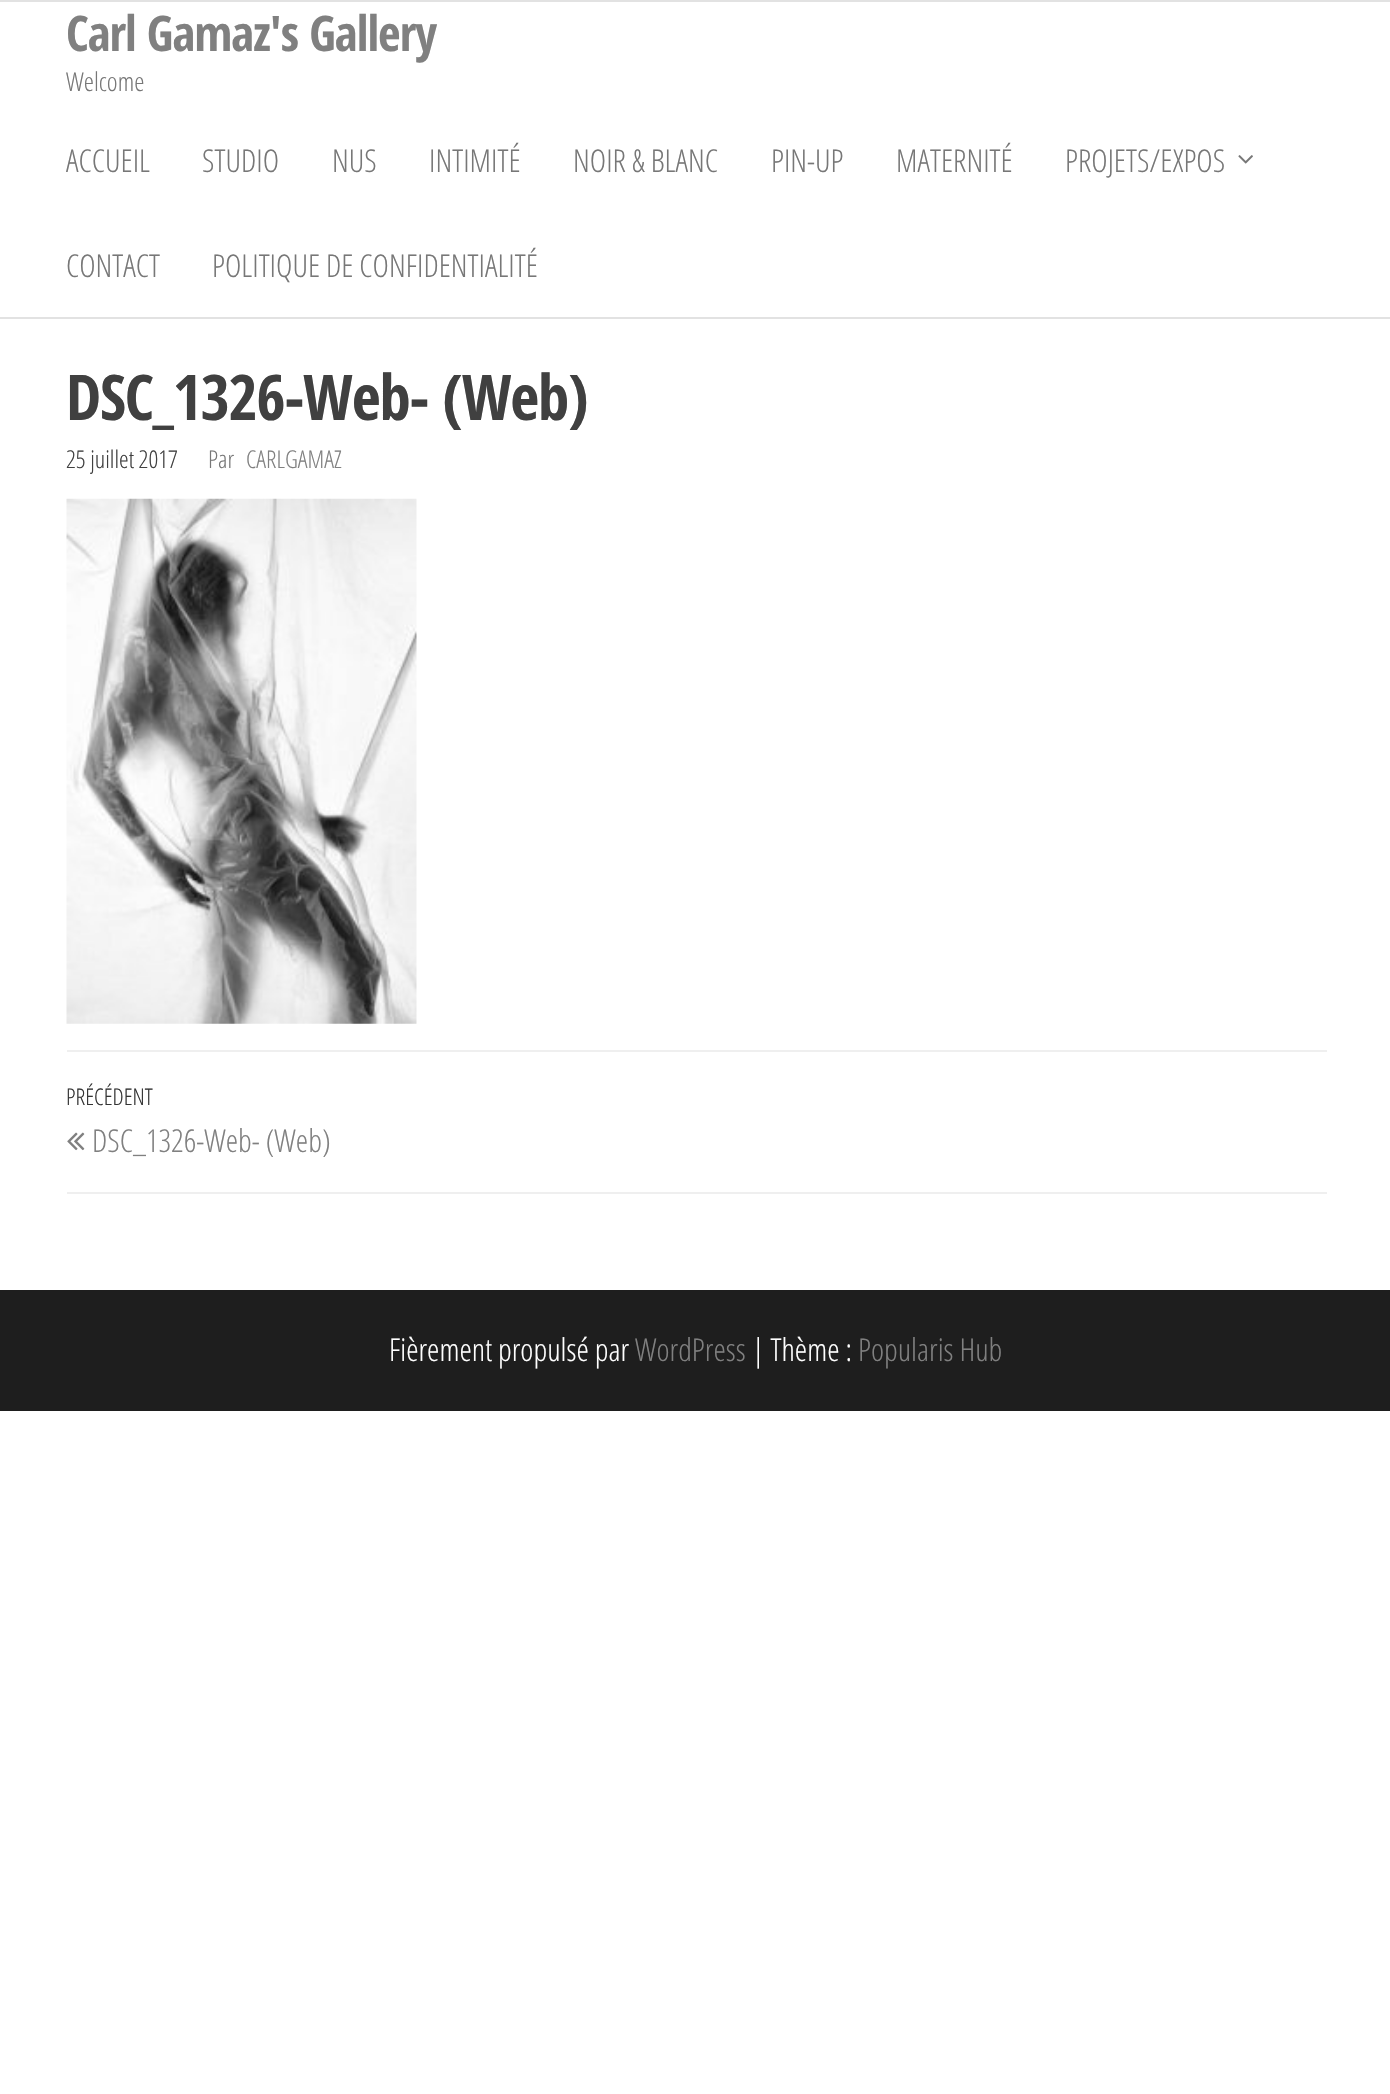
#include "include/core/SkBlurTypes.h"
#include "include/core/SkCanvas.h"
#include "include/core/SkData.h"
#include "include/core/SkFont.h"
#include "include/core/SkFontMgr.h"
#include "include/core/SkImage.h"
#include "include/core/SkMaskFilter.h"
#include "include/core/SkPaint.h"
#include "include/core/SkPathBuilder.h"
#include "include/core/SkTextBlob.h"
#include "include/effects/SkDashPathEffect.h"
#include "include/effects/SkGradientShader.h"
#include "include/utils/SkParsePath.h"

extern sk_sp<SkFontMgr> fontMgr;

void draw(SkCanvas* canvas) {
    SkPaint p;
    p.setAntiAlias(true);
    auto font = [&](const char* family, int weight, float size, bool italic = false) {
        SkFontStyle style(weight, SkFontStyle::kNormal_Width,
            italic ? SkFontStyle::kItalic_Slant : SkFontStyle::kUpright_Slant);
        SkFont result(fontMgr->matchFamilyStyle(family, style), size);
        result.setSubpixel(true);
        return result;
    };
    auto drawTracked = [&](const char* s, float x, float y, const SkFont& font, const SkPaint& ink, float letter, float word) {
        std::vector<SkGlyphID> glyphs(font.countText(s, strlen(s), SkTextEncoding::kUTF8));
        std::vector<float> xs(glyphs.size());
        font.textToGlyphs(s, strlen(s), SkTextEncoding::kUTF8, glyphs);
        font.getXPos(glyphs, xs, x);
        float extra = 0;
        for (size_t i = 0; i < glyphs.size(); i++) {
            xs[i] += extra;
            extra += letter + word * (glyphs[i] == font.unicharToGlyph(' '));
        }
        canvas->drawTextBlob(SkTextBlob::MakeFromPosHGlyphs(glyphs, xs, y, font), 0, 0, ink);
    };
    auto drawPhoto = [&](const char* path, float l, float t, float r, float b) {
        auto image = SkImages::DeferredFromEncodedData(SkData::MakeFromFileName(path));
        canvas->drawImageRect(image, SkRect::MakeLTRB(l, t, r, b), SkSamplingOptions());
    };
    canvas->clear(0xFFFFFFFF);
    p.setColor(0xFFE2E2E2);
    canvas->drawRect(SkRect::MakeLTRB(0, 0, 1390, 2), p);
    canvas->drawRect(SkRect::MakeLTRB(0, 317, 1390, 319), p);
    auto font1 = font("Open Sans Condensed", 700, 49);
    p.setColor(0xFF808080);
    drawTracked("Carl Gamaz's Gallery", 66, 51, font1, p, -1, 0);
    auto font2 = font("Open Sans Condensed", 300, 26);
    p.setColor(0xFF777777);
    canvas->drawString("Welcome", 66, 91, font2, p);
    auto font3 = font("Open Sans Condensed", 300, 31.5f);
    {
        const struct { const char* s; float x, y; } items[] = {
            {"ACCUEIL", 66, 172},
            {"STUDIO", 202, 172},
            {"NUS", 332, 172},
            {"INTIMITÉ", 429, 172},
            {"NOIR & BLANC", 573, 172},
            {"PIN-UP", 771, 172},
            {"MATERNITÉ", 896, 172},
            {"PROJETS/EXPOS", 1065, 172},
        };
        for (auto [s, x, y] : items) {
            canvas->drawString(s, x, y, font3, p);
        }
    }
    drawPhoto("media/1.png", 1238, 155, 1253, 164);
    canvas->drawString("CONTACT", 66, 277, font3, p);
    canvas->drawString("POLITIQUE DE CONFIDENTIALITÉ", 212, 277, font3, p);
    auto font4 = font("Open Sans Condensed", 700, 63);
    p.setColor(0xFF404040);
    drawTracked("DSC_1326-Web- (Web)", 66, 420, font4, p, -1.25f, 0);
    auto font5 = font("Open Sans Condensed", 300, 24.5f);
    canvas->drawString("25 juillet 2017", 66, 468, font5, p);
    p.setColor(0xFF777777);
    canvas->drawString("Par", 208, 468, font5, p);
    p.setColor(0xFF808080);
    canvas->drawString("CARLGAMAZ", 246, 468, font5, p);
    drawPhoto("media/2.png", 66, 498, 417, 1024);
    p.setColor(0xFFEFEFEF);
    canvas->drawRect(SkRect::MakeLTRB(67, 1050, 1327, 1052), p);
    canvas->drawRect(SkRect::MakeLTRB(67, 1192, 1327, 1194), p);
    auto font6 = font("Open Sans Condensed", 300, 23);
    p.setColor(0xFF333333);
    canvas->drawString("PRÉCÉDENT", 66, 1105, font6, p);
    drawPhoto("media/3.png", 67, 1132, 85, 1151);
    p.setColor(0xFF808080);
    canvas->drawString("DSC_1326-Web- (Web)", 92, 1152, font3, p);
    p.setColor(0xFF1E1E1E);
    canvas->drawRect(SkRect::MakeLTRB(0, 1290, 1390, 1411), p);
    p.setColor(0xFFFFFFFF);
    canvas->drawString("Fièrement propulsé par", 389, 1361, font3, p);
    p.setColor(0xFF808080);
    canvas->drawString("WordPress", 635, 1361, font3, p);
    p.setColor(0xFFFFFFFF);
    canvas->drawString("| Thème :", 752, 1361, font3, p);
    p.setColor(0xFF808080);
    canvas->drawString("Popularis Hub", 858, 1361, font3, p);
}
